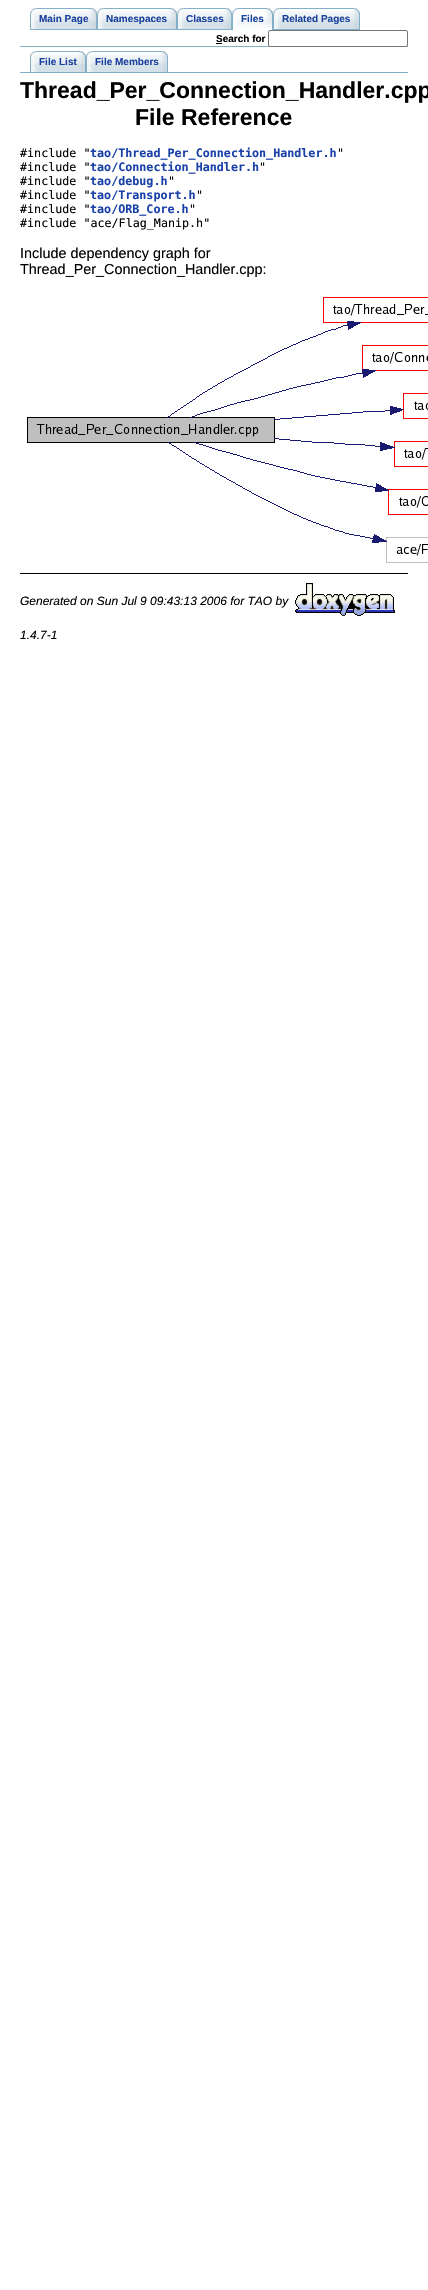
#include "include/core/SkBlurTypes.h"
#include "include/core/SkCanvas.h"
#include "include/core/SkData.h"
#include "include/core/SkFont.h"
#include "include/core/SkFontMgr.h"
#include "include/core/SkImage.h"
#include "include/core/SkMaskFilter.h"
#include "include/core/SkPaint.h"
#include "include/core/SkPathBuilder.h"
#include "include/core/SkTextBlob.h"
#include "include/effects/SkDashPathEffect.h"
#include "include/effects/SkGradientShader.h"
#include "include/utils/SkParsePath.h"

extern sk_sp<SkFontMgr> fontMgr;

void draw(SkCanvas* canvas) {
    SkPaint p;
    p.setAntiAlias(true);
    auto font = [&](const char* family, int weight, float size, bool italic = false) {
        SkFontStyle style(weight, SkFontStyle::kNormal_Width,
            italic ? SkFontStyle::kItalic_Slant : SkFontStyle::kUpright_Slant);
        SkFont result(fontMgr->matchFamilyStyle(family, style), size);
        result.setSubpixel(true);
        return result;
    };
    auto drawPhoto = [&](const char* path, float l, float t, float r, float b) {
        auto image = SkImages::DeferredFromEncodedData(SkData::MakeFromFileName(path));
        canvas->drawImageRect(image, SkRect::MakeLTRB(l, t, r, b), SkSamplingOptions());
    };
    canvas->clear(0xFFFFFFFF);
    p.setColor(0xFF84B0C7);
    canvas->drawRect(SkRect::MakeLTRB(20, 46, 408, 47), p);
    drawPhoto("media/1.png", 39, 8, 97, 29);
    canvas->drawRect(SkRect::MakeLTRB(30, 29, 232, 30), p);
    drawPhoto("media/2.png", 30, 8, 39, 29);
    auto font1 = font("Liberation Sans", 700, 10);
    p.setColor(0xFF1A419D);
    canvas->drawString("Main Page", 39, 22, font1, p);
    drawPhoto("media/3.png", 106, 8, 177, 29);
    drawPhoto("media/2.png", 97, 8, 106, 29);
    canvas->drawString("Namespaces", 106, 22, font1, p);
    drawPhoto("media/4.png", 186, 8, 232, 29);
    drawPhoto("media/2.png", 177, 8, 186, 29);
    canvas->drawString("Classes", 186, 22, font1, p);
    drawPhoto("media/5.png", 239, 8, 273, 30);
    drawPhoto("media/6.png", 232, 8, 239, 30);
    canvas->drawString("Files", 241, 22, font1, p);
    drawPhoto("media/7.png", 282, 8, 360, 29);
    p.setColor(0xFF84B0C7);
    canvas->drawRect(SkRect::MakeLTRB(273, 29, 360, 30), p);
    drawPhoto("media/2.png", 273, 8, 282, 29);
    p.setColor(0xFF1A419D);
    canvas->drawString("Related Pages", 282, 22, font1, p);
    p.setColor(0xFF000000);
    canvas->drawString("Search for", 216, 42, font1, p);
    canvas->drawRect(SkRect::MakeLTRB(216, 43, 222, 44), p);
    p.setColor(0xFFFFFFFF);
    canvas->drawRoundRect(SkRect::MakeLTRB(268.5f, 30.5f, 407.5f, 46.5f), 1.5f, 1.5f, p);
    p.setStyle(SkPaint::kStroke_Style);
    p.setStrokeWidth(1);
    p.setColor(0xFF767676);
    canvas->drawRoundRect(SkRect::MakeLTRB(268.5f, 30.5f, 407.5f, 46.5f), 1.5f, 1.5f, p);
    p.setStyle(SkPaint::kFill_Style);
    p.setColor(0xFF84B0C7);
    canvas->drawRect(SkRect::MakeLTRB(20, 72, 408, 73), p);
    drawPhoto("media/8.png", 39, 51, 86, 72);
    drawPhoto("media/2.png", 30, 51, 39, 72);
    p.setColor(0xFF1A419D);
    canvas->drawString("File List", 39, 65, font1, p);
    drawPhoto("media/9.png", 95, 51, 168, 72);
    drawPhoto("media/2.png", 86, 51, 95, 72);
    canvas->drawString("File Members", 95, 65, font1, p);
    auto font2 = font("Liberation Sans", 700, 23);
    p.setColor(0xFF000000);
    canvas->drawString("Thread_Per_Connection_Handler.cpp", 20, 98, font2, p);
    canvas->drawString("File Reference", 135, 125, font2, p);
    auto font3 = font("DejaVu Sans Mono", 400, 11.7f);
    canvas->drawString("#include \"", 20, 157, font3, p);
    auto font4 = font("DejaVu Sans Mono", 700, 11.7f);
    p.setColor(0xFF1A41A8);
    canvas->drawString("tao/Thread_Per_Connection_Handler.h", 90, 157, font4, p);
    p.setColor(0xFF000000);
    canvas->drawString("\"", 337, 157, font3, p);
    canvas->drawString("#include \"", 20, 171, font3, p);
    p.setColor(0xFF1A41A8);
    canvas->drawString("tao/Connection_Handler.h", 90, 171, font4, p);
    p.setColor(0xFF000000);
    canvas->drawString("\"", 259, 171, font3, p);
    canvas->drawString("#include \"", 20, 185, font3, p);
    p.setColor(0xFF1A41A8);
    canvas->drawString("tao/debug.h", 90, 185, font4, p);
    p.setColor(0xFF000000);
    canvas->drawString("\"", 168, 185, font3, p);
    canvas->drawString("#include \"", 20, 199, font3, p);
    p.setColor(0xFF1A41A8);
    canvas->drawString("tao/Transport.h", 90, 199, font4, p);
    p.setColor(0xFF000000);
    canvas->drawString("\"", 196, 199, font3, p);
    canvas->drawString("#include \"", 20, 213, font3, p);
    p.setColor(0xFF1A41A8);
    canvas->drawString("tao/ORB_Core.h", 90, 213, font4, p);
    p.setColor(0xFF000000);
    canvas->drawString("\"", 189, 213, font3, p);
    canvas->drawString("#include \"ace/Flag_Manip.h\"", 20, 227, font3, p);
    auto font5 = font("Liberation Sans", 400, 14.4f);
    canvas->drawString("Include dependency graph for", 20, 258, font5, p);
    canvas->drawString("Thread_Per_Connection_Handler.cpp:", 20, 274, font5, p);
    drawPhoto("media/10.png", 27, 297, 428, 563);
    canvas->drawRect(SkRect::MakeLTRB(20, 573, 408, 574), p);
    auto font6 = font("Liberation Sans", 400, 12, true);
    canvas->drawString("Generated on Sun Jul 9 09:43:13 2006 for TAO by", 20, 605, font6, p);
    drawPhoto("media/11.png", 295, 583, 395, 616);
    canvas->drawString("1.4.7-1", 20, 639, font6, p);
}
